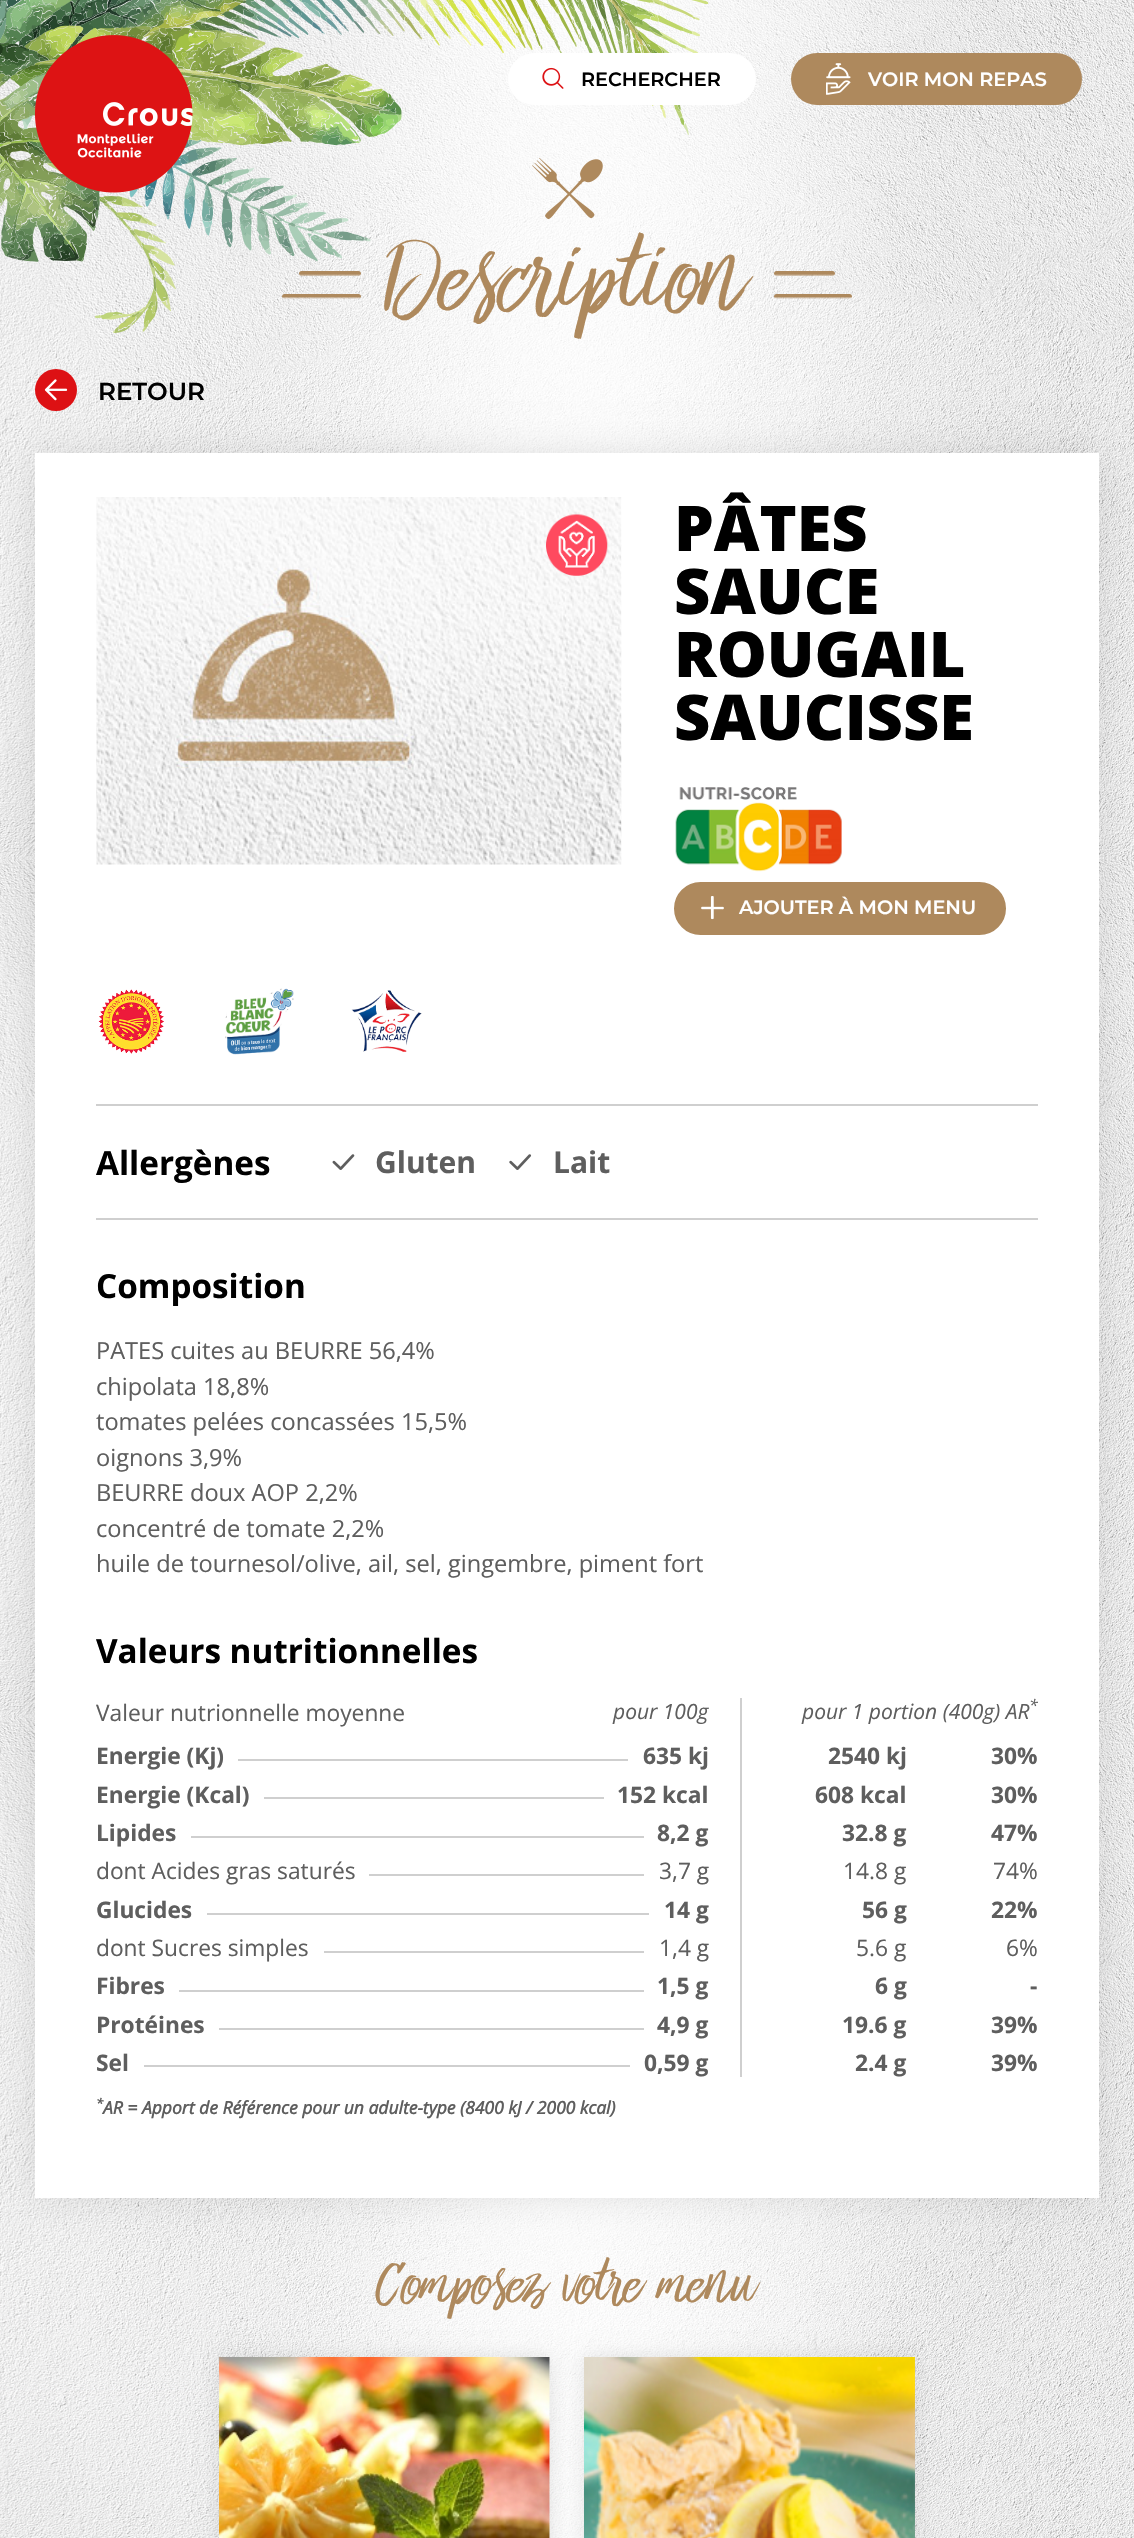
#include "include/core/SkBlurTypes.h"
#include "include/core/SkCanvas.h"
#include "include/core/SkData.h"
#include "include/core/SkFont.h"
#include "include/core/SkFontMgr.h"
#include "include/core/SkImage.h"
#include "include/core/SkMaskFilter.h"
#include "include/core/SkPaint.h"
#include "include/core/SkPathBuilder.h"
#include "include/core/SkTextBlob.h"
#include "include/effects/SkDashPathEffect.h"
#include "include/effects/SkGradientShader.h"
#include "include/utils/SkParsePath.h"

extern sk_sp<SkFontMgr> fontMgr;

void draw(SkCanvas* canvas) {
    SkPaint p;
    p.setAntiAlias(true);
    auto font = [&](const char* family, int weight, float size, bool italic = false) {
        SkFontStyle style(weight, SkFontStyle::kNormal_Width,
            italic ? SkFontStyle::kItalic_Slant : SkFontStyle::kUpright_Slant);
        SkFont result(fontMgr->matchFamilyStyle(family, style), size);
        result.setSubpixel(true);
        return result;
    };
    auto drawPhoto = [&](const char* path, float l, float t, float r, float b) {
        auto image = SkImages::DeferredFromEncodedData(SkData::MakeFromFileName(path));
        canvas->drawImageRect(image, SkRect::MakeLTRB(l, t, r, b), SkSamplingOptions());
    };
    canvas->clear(0xFFFFFFFF);
    drawPhoto("media/1.png", 0, 0, 1134, 2538);
    drawPhoto("media/2.png", 0, 0, 709, 333);
    drawPhoto("media/3.png", 35, 35, 193, 193);
    p.setColor(0xFFFFFFFF);
    canvas->drawRoundRect(SkRect::MakeLTRB(508, 53, 756, 105), 26, 26, p);
    drawPhoto("media/4.png", 542, 67, 564, 89);
    auto font1 = font("Montserrat", 600, 19.25f);
    p.setColor(0xFF000000);
    canvas->drawString("RECHERCHER", 581, 86, font1, p);
    p.setColor(0xFFAE895D);
    canvas->drawRoundRect(SkRect::MakeLTRB(791, 53, 1082, 105), 26, 26, p);
    drawPhoto("media/5.png", 826, 63, 851, 95);
    p.setColor(0xFFFFFFFF);
    canvas->drawString("VOIR MON REPAS", 868, 86, font1, p);
    drawPhoto("media/6.png", 532, 157, 603, 220);
    auto font2 = font("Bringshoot", 400, 108.5f);
    p.setColor(0xFFAE895D);
    canvas->drawString("Description", 387, 308, font2, p);
    p.setColor(0x1A000000);
    p.setMaskFilter(SkMaskFilter::MakeBlur(kNormal_SkBlurStyle, 17.5f));
    canvas->drawRect(SkRect::MakeLTRB(35, 453, 1099, 2198), p);
    p.setMaskFilter(nullptr);
    p.setColor(0xFFDD1114);
    canvas->drawCircle(56, 390, 21, p);
    drawPhoto("media/7.png", 44, 379, 68, 401);
    auto font3 = font("Montserrat", 600, 24.5f);
    p.setColor(0xFF000000);
    canvas->drawString("RETOUR", 98, 400, font3, p);
    p.setColor(0xFFFFFFFF);
    canvas->drawRect(SkRect::MakeLTRB(35, 453, 1099, 2198), p);
    drawPhoto("media/8.png", 96, 497, 622, 865);
    drawPhoto("media/9.png", 546, 514, 608, 576);
    auto font4 = font("Open Sans", 800, 63);
    p.setColor(0xFF000000);
    {
        const struct { const char* s; float x, y; } items[] = {
            {"PÂTES", 674, 551},
            {"SAUCE", 674, 614},
            {"ROUGAIL", 674, 677},
            {"SAUCISSE", 674, 740},
        };
        for (auto [s, x, y] : items) {
            canvas->drawString(s, x, y, font4, p);
        }
    }
    drawPhoto("media/10.png", 675, 787, 842, 872);
    p.setColor(0xFFAE895D);
    canvas->drawRoundRect(SkRect::MakeLTRB(676, 884, 1004, 933), 24.5f, 24.5f, p);
    p.setStyle(SkPaint::kStroke_Style);
    p.setStrokeWidth(4);
    canvas->drawRoundRect(SkRect::MakeLTRB(676, 884, 1004, 933), 24.5f, 24.5f, p);
    drawPhoto("media/11.png", 701, 896, 724, 920);
    p.setStyle(SkPaint::kFill_Style);
    p.setColor(0xFFFFFFFF);
    canvas->drawString("AJOUTER À MON MENU", 739, 914, font1, p);
    drawPhoto("media/12.png", 98, 989, 164, 1054);
    drawPhoto("media/13.png", 225, 988, 294, 1055);
    drawPhoto("media/14.png", 351, 990, 422, 1052);
    p.setColor(0xFFCFCFCF);
    canvas->drawRect(SkRect::MakeLTRB(96, 1104, 1038, 1106), p);
    canvas->drawRect(SkRect::MakeLTRB(96, 1218, 1038, 1220), p);
    auto font5 = font("Open Sans", 700, 33.25f);
    p.setColor(0xFF000000);
    canvas->drawString("Allergènes", 96, 1175, font5, p);
    drawPhoto("media/15.png", 332, 1154, 355, 1170);
    auto font6 = font("Open Sans", 700, 30);
    p.setColor(0xFF5E5E5E);
    canvas->drawString("Gluten", 375, 1173, font6, p);
    drawPhoto("media/16.png", 509, 1154, 532, 1170);
    canvas->drawString("Lait", 553, 1173, font6, p);
    p.setColor(0xFF000000);
    canvas->drawString("Composition", 96, 1298, font5, p);
    auto font7 = font("Open Sans", 400, 23.6f);
    p.setColor(0xFF5E5E5E);
    {
        const struct { const char* s; float x, y; } items[] = {
            {"PATES cuites au BEURRE 56,4%", 96, 1359},
            {"chipolata 18,8%", 96, 1395},
            {"tomates pelées concassées 15,5%", 96, 1430},
            {"oignons 3,9%", 96, 1466},
            {"BEURRE doux AOP 2,2%", 96, 1501},
            {"concentré de tomate 2,2%", 96, 1537},
            {"huile de tournesol/olive, ail, sel, gingembre, piment fort", 96, 1572},
        };
        for (auto [s, x, y] : items) {
            canvas->drawString(s, x, y, font7, p);
        }
    }
    p.setColor(0xFF000000);
    canvas->drawString("Valeurs nutritionnelles", 96, 1663, font5, p);
    auto font8 = font("Open Sans", 400, 22.75f);
    p.setColor(0xFF5E5E5E);
    canvas->drawString("Valeur nutrionnelle moyenne", 96, 1721, font8, p);
    auto font9 = font("Open Sans", 400, 21, true);
    canvas->drawString("pour 100g", 613, 1719, font9, p);
    p.setColor(0xFFCFCFCF);
    canvas->drawRect(SkRect::MakeLTRB(740, 1698, 742, 2077), p);
    p.setColor(0xFF5E5E5E);
    canvas->drawString("pour 1 portion (400g) AR", 802, 1719, font9, p);
    auto font10 = font("Open Sans", 400, 16, true);
    canvas->drawString("*", 1029, 1711, font10, p);
    auto font11 = font("Open Sans", 700, 22.75f);
    canvas->drawString("Energie (Kj)", 96, 1764, font11, p);
    p.setColor(0xFFCFCFCF);
    canvas->drawRect(SkRect::MakeLTRB(238, 1759, 628, 1761), p);
    p.setColor(0xFF5E5E5E);
    {
        const struct { const char* s; float x, y; } items[] = {
            {"635 kj", 643, 1764},
            {"2540 kj", 828, 1764},
            {"30%", 991, 1764},
            {"Energie (Kcal)", 96, 1803},
        };
        for (auto [s, x, y] : items) {
            canvas->drawString(s, x, y, font11, p);
        }
    }
    p.setColor(0xFFCFCFCF);
    canvas->drawRect(SkRect::MakeLTRB(264, 1797, 604, 1799), p);
    p.setColor(0xFF5E5E5E);
    {
        const struct { const char* s; float x, y; } items[] = {
            {"152 kcal", 617, 1803},
            {"608 kcal", 815, 1803},
            {"30%", 991, 1803},
            {"Lipides", 96, 1841},
        };
        for (auto [s, x, y] : items) {
            canvas->drawString(s, x, y, font11, p);
        }
    }
    p.setColor(0xFFCFCFCF);
    canvas->drawRect(SkRect::MakeLTRB(191, 1836, 644, 1838), p);
    p.setColor(0xFF5E5E5E);
    {
        const struct { const char* s; float x, y; } items[] = {
            {"8,2 g", 657, 1841},
            {"32.8 g", 842, 1841},
            {"47%", 991, 1841},
        };
        for (auto [s, x, y] : items) {
            canvas->drawString(s, x, y, font11, p);
        }
    }
    canvas->drawString("dont Acides gras saturés", 96, 1879, font8, p);
    p.setColor(0xFFCFCFCF);
    canvas->drawRect(SkRect::MakeLTRB(369, 1874, 644, 1876), p);
    p.setColor(0xFF5E5E5E);
    {
        const struct { const char* s; float x, y; } items[] = {
            {"3,7 g", 659, 1879},
            {"14.8 g", 843, 1879},
            {"74%", 993, 1879},
        };
        for (auto [s, x, y] : items) {
            canvas->drawString(s, x, y, font8, p);
        }
    }
    canvas->drawString("Glucides", 96, 1918, font11, p);
    p.setColor(0xFFCFCFCF);
    canvas->drawRect(SkRect::MakeLTRB(207, 1913, 649, 1915), p);
    p.setColor(0xFF5E5E5E);
    {
        const struct { const char* s; float x, y; } items[] = {
            {"14 g", 664, 1918},
            {"56 g", 862, 1918},
            {"22%", 991, 1918},
        };
        for (auto [s, x, y] : items) {
            canvas->drawString(s, x, y, font11, p);
        }
    }
    canvas->drawString("dont Sucres simples", 96, 1956, font8, p);
    p.setColor(0xFFCFCFCF);
    canvas->drawRect(SkRect::MakeLTRB(324, 1951, 644, 1953), p);
    p.setColor(0xFF5E5E5E);
    {
        const struct { const char* s; float x, y; } items[] = {
            {"1,4 g", 659, 1956},
            {"5.6 g", 856, 1956},
            {"6%", 1006, 1956},
        };
        for (auto [s, x, y] : items) {
            canvas->drawString(s, x, y, font8, p);
        }
    }
    canvas->drawString("Fibres", 96, 1994, font11, p);
    p.setColor(0xFFCFCFCF);
    canvas->drawRect(SkRect::MakeLTRB(179, 1990, 644, 1992), p);
    p.setColor(0xFF5E5E5E);
    {
        const struct { const char* s; float x, y; } items[] = {
            {"1,5 g", 657, 1994},
            {"6 g", 875, 1994},
            {"-", 1030, 1994},
            {"Protéines", 96, 2033},
        };
        for (auto [s, x, y] : items) {
            canvas->drawString(s, x, y, font11, p);
        }
    }
    p.setColor(0xFFCFCFCF);
    canvas->drawRect(SkRect::MakeLTRB(219, 2028, 644, 2030), p);
    p.setColor(0xFF5E5E5E);
    {
        const struct { const char* s; float x, y; } items[] = {
            {"4,9 g", 657, 2033},
            {"19.6 g", 842, 2033},
            {"39%", 991, 2033},
            {"Sel", 96, 2071},
        };
        for (auto [s, x, y] : items) {
            canvas->drawString(s, x, y, font11, p);
        }
    }
    p.setColor(0xFFCFCFCF);
    canvas->drawRect(SkRect::MakeLTRB(144, 2065, 630, 2067), p);
    p.setColor(0xFF5E5E5E);
    {
        const struct { const char* s; float x, y; } items[] = {
            {"0,59 g", 644, 2071},
            {"2.4 g", 855, 2071},
            {"39%", 991, 2071},
        };
        for (auto [s, x, y] : items) {
            canvas->drawString(s, x, y, font11, p);
        }
    }
    auto font12 = font("Open Sans", 700, 17.5f, true);
    canvas->drawString("AR = Apport de Référence pour un adulte-type (8400 kJ / 2000 kcal)", 103, 2114, font12, p);
    auto font13 = font("Open Sans", 700, 13, true);
    canvas->drawString("*", 96, 2108, font13, p);
    auto font14 = font("Bringshoot", 400, 63);
    p.setColor(0xFFAE895D);
    canvas->drawString("Composez votre menu", 377, 2301, font14, p);
    p.setColor(0x1A000000);
    p.setMaskFilter(SkMaskFilter::MakeBlur(kNormal_SkBlurStyle, 9));
    canvas->drawRect(SkRect::MakeLTRB(219, 2357, 550, 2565), p);
    p.setMaskFilter(nullptr);
    drawPhoto("media/17.png", 219, 2357, 550, 2538);
    p.setMaskFilter(SkMaskFilter::MakeBlur(kNormal_SkBlurStyle, 9));
    canvas->drawRect(SkRect::MakeLTRB(585, 2357, 915, 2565), p);
    p.setMaskFilter(nullptr);
    drawPhoto("media/18.png", 584, 2357, 915, 2538);
}
